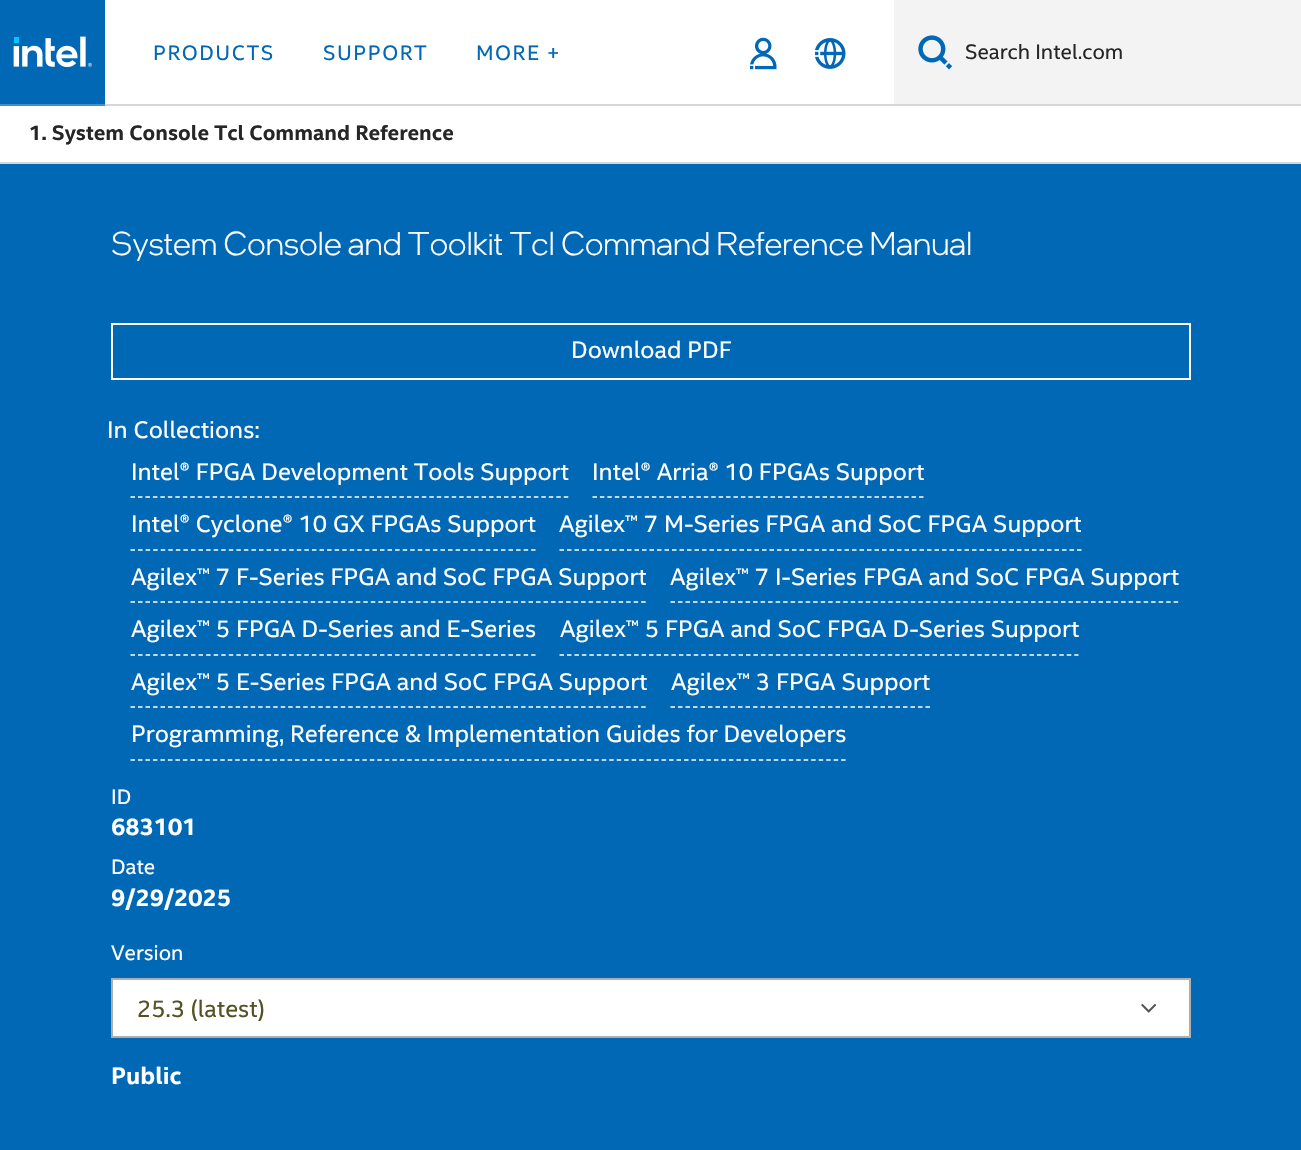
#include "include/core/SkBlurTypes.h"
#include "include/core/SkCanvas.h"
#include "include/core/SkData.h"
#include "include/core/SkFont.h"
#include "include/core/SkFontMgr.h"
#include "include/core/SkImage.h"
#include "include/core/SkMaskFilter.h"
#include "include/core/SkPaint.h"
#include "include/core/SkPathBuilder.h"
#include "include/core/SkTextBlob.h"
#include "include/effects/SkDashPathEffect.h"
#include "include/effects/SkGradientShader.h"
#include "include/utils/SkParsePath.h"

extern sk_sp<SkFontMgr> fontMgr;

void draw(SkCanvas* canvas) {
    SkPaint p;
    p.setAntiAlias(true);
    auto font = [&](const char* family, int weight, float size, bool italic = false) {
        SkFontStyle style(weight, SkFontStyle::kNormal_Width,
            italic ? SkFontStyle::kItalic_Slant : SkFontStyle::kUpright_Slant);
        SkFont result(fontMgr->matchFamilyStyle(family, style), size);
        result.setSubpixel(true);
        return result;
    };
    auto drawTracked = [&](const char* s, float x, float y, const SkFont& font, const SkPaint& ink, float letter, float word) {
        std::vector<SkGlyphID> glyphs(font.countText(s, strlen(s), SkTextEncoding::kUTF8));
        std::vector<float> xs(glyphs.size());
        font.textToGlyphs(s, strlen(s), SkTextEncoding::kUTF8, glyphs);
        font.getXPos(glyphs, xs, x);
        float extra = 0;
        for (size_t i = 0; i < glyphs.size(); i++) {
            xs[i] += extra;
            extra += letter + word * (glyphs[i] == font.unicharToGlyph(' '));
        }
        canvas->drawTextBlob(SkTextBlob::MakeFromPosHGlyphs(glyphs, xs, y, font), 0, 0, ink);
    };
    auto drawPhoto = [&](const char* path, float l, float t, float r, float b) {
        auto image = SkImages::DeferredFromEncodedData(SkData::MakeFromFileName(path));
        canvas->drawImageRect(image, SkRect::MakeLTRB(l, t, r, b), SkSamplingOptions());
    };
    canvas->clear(0xFFFFFFFF);
    p.setColor(0xFFD7D7D7);
    canvas->drawRect(SkRect::MakeLTRB(105, 104, 1301, 106), p);
    p.setColor(0xFF0068B5);
    canvas->drawRect(SkRect::MakeLTRB(0, 0, 105, 104), p);
    drawPhoto("media/1.png", 13, 36, 92, 68);
    p.setColor(0xFF4290CB);
    canvas->drawRect(SkRect::MakeLTRB(0, 104, 105, 106), p);
    auto font1 = font("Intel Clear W", 400, 21);
    p.setColor(0xFF0068B5);
    {
        const struct { const char* s; float x, y; } items[] = {
            {"PRODUCTS", 153, 60},
            {"SUPPORT", 323, 60},
            {"MORE +", 476, 60},
        };
        for (auto [s, x, y] : items) {
            drawTracked(s, x, y, font1, p, 1.5f, 0);
        }
    }
    drawPhoto("media/2.png", 750, 37, 777, 70);
    drawPhoto("media/3.png", 815, 38, 846, 69);
    p.setColor(0xFFF3F3F3);
    canvas->drawRect(SkRect::MakeLTRB(894, 0, 1301, 104), p);
    drawPhoto("media/4.png", 918, 35, 953, 70);
    p.setColor(0xFF262626);
    canvas->drawString("Search Intel.com", 965, 59, font1, p);
    p.setColor(0xFFD7D7D7);
    canvas->drawRect(SkRect::MakeLTRB(0, 162, 1301, 164), p);
    auto font2 = font("Intel Clear W", 700, 21);
    p.setColor(0xFF262626);
    canvas->drawString("1. System Console Tcl Command Reference", 29, 140, font2, p);
    p.setColor(0xFF0068B5);
    canvas->drawRect(SkRect::MakeLTRB(0, 164, 1301, 1150), p);
    auto font3 = font("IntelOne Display", 300, 33);
    p.setColor(0xFFFFFFFF);
    canvas->drawString("System Console and Toolkit Tcl Command Reference Manual", 111, 255, font3, p);
    p.setStyle(SkPaint::kStroke_Style);
    p.setStrokeWidth(2);
    canvas->drawRect(SkRect::MakeLTRB(112, 324, 1190, 379), p);
    auto font4 = font("Intel Clear W", 400, 24);
    p.setStyle(SkPaint::kFill_Style);
    canvas->drawString("Download PDF", 571, 358, font4, p);
    canvas->drawString("In Collections:", 107, 438, font4, p);
    p.setStyle(SkPaint::kStroke_Style);
    p.setStrokeWidth(1.5f);
    p.setPathEffect(SkDashPathEffect::Make({{4.5f, 2.97f}}, 0));
    canvas->drawPath(SkPathBuilder().moveTo(130.5f, 497).lineTo(568.5f, 497).detach(), p);
    p.setPathEffect(nullptr);
    p.setStyle(SkPaint::kFill_Style);
    canvas->drawString("Intel® FPGA Development Tools Support", 131, 480, font4, p);
    p.setStyle(SkPaint::kStroke_Style);
    p.setPathEffect(SkDashPathEffect::Make({{4.5f, 2.92f}}, 0));
    canvas->drawPath(SkPathBuilder().moveTo(592.5f, 497).lineTo(924, 497).detach(), p);
    p.setPathEffect(nullptr);
    p.setStyle(SkPaint::kFill_Style);
    canvas->drawString("Intel® Arria® 10 FPGAs Support", 592, 480, font4, p);
    p.setStyle(SkPaint::kStroke_Style);
    p.setPathEffect(SkDashPathEffect::Make({{4.5f, 3.06f}}, 0));
    canvas->drawPath(SkPathBuilder().moveTo(130.5f, 550).lineTo(535.5f, 550).detach(), p);
    p.setPathEffect(nullptr);
    p.setStyle(SkPaint::kFill_Style);
    canvas->drawString("Intel® Cyclone® 10 GX FPGAs Support", 131, 532, font4, p);
    p.setStyle(SkPaint::kStroke_Style);
    p.setPathEffect(SkDashPathEffect::Make({{4.5f, 3}}, 0));
    canvas->drawPath(SkPathBuilder().moveTo(559.5f, 550).lineTo(1081.5f, 550).detach(), p);
    p.setPathEffect(nullptr);
    p.setStyle(SkPaint::kFill_Style);
    canvas->drawString("Agilex™ 7 M-Series FPGA and SoC FPGA Support", 559, 532, font4, p);
    p.setStyle(SkPaint::kStroke_Style);
    p.setPathEffect(SkDashPathEffect::Make({{4.5f, 3.01f}}, 0));
    canvas->drawPath(SkPathBuilder().moveTo(130.5f, 602).lineTo(646.5f, 602).detach(), p);
    p.setPathEffect(nullptr);
    p.setStyle(SkPaint::kFill_Style);
    canvas->drawString("Agilex™ 7 F-Series FPGA and SoC FPGA Support", 131, 585, font4, p);
    p.setStyle(SkPaint::kStroke_Style);
    p.setPathEffect(SkDashPathEffect::Make({{4.5f, 3.01f}}, 0));
    canvas->drawPath(SkPathBuilder().moveTo(670.5f, 602).lineTo(1179, 602).detach(), p);
    p.setPathEffect(nullptr);
    p.setStyle(SkPaint::kFill_Style);
    canvas->drawString("Agilex™ 7 I-Series FPGA and SoC FPGA Support", 670, 585, font4, p);
    p.setStyle(SkPaint::kStroke_Style);
    p.setPathEffect(SkDashPathEffect::Make({{4.5f, 3.06f}}, 0));
    canvas->drawPath(SkPathBuilder().moveTo(130.5f, 655).lineTo(535.5f, 655).detach(), p);
    p.setPathEffect(nullptr);
    p.setStyle(SkPaint::kFill_Style);
    canvas->drawString("Agilex™ 5 FPGA D-Series and E-Series", 131, 637, font4, p);
    p.setStyle(SkPaint::kStroke_Style);
    p.setPathEffect(SkDashPathEffect::Make({{4.5f, 2.96f}}, 0));
    canvas->drawPath(SkPathBuilder().moveTo(559.5f, 655).lineTo(1078.5f, 655).detach(), p);
    p.setPathEffect(nullptr);
    p.setStyle(SkPaint::kFill_Style);
    canvas->drawString("Agilex™ 5 FPGA and SoC FPGA D-Series Support", 560, 637, font4, p);
    p.setStyle(SkPaint::kStroke_Style);
    p.setPathEffect(SkDashPathEffect::Make({{4.5f, 3.01f}}, 0));
    canvas->drawPath(SkPathBuilder().moveTo(130.5f, 707).lineTo(646.5f, 707).detach(), p);
    p.setPathEffect(nullptr);
    p.setStyle(SkPaint::kFill_Style);
    canvas->drawString("Agilex™ 5 E-Series FPGA and SoC FPGA Support", 131, 690, font4, p);
    p.setStyle(SkPaint::kStroke_Style);
    p.setPathEffect(SkDashPathEffect::Make({{4.5f, 3}}, 0));
    canvas->drawPath(SkPathBuilder().moveTo(670.5f, 707).lineTo(930, 707).detach(), p);
    p.setPathEffect(nullptr);
    p.setStyle(SkPaint::kFill_Style);
    canvas->drawString("Agilex™ 3 FPGA Support", 671, 690, font4, p);
    p.setStyle(SkPaint::kStroke_Style);
    p.setPathEffect(SkDashPathEffect::Make({{4.5f, 2.98f}}, 0));
    canvas->drawPath(SkPathBuilder().moveTo(130.5f, 760).lineTo(846, 760).detach(), p);
    p.setPathEffect(nullptr);
    p.setStyle(SkPaint::kFill_Style);
    canvas->drawString("Programming, Reference & Implementation Guides for Developers", 131, 742, font4, p);
    canvas->drawString("ID", 111, 804, font1, p);
    auto font5 = font("Intel Clear W", 700, 24);
    canvas->drawString("683101", 111, 835, font5, p);
    canvas->drawString("Date", 111, 874, font1, p);
    canvas->drawString("9/29/2025", 111, 906, font5, p);
    canvas->drawString("Version", 111, 960, font1, p);
    canvas->drawRect(SkRect::MakeLTRB(112, 979, 1190, 1037), p);
    p.setStyle(SkPaint::kStroke_Style);
    p.setStrokeWidth(2);
    p.setColor(0xFFAEAEAE);
    canvas->drawRect(SkRect::MakeLTRB(112, 979, 1190, 1037), p);
    p.setStyle(SkPaint::kFill_Style);
    p.setColor(0xFF525225);
    canvas->drawString("25.3 (latest)", 137, 1017, font4, p);
    drawPhoto("media/5.png", 1141, 1003, 1157, 1013);
    p.setColor(0xFFFFFFFF);
    canvas->drawString("Public", 111, 1084, font5, p);
}
